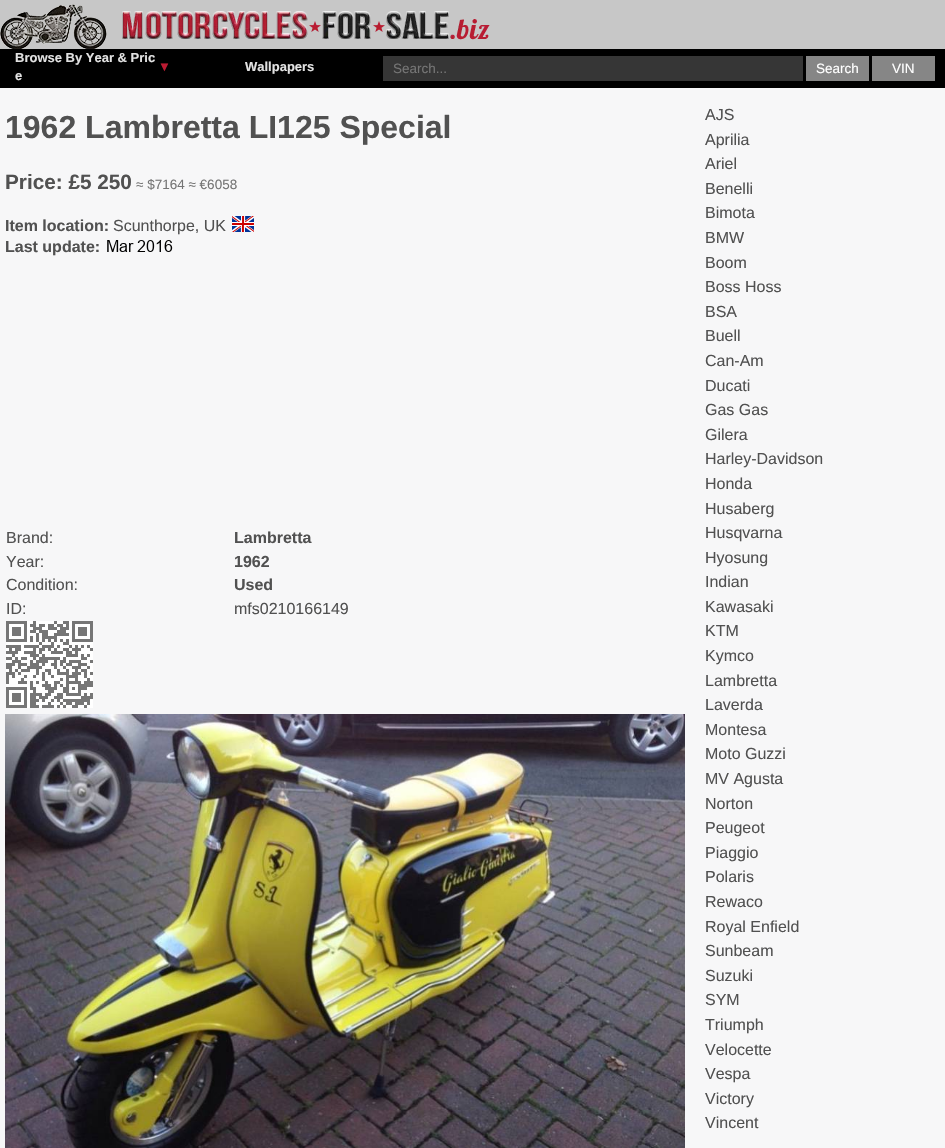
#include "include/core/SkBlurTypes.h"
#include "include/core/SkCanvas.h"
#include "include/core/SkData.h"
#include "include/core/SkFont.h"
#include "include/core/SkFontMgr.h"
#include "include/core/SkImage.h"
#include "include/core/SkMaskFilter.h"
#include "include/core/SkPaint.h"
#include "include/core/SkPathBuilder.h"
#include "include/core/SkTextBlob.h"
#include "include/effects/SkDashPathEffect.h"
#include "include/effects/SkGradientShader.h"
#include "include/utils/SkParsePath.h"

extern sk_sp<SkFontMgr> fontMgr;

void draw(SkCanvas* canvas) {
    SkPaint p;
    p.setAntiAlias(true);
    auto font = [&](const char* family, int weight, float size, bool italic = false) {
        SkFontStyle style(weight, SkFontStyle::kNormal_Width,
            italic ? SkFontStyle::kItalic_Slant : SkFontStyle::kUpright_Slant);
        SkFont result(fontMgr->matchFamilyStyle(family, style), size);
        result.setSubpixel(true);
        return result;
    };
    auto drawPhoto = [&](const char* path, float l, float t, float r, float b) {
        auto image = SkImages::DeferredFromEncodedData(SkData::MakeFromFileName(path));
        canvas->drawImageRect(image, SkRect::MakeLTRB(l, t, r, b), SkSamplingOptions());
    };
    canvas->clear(0xFFF7F7F8);
    p.setColor(0xFFC7C7C7);
    canvas->drawRect(SkRect::MakeLTRB(0, 0, 945, 49), p);
    drawPhoto("media/1.png", 0, 4, 490, 49);
    p.setColor(0xFF000000);
    canvas->drawRect(SkRect::MakeLTRB(0, 49, 945, 88), p);
    auto font1 = font("Liberation Sans", 700, 13);
    p.setColor(0xFFE2E2E2);
    canvas->drawString("Browse By Year & Pric", 15, 62, font1, p);
    p.setColor(0xFFBC1B32);
    canvas->drawString("▼", 158, 71, font1, p);
    p.setColor(0xFFE2E2E2);
    canvas->drawString("e", 15, 80, font1, p);
    canvas->drawString("Wallpapers", 245, 71, font1, p);
    p.setColor(0xFF363636);
    canvas->drawRect(SkRect::MakeLTRB(383, 56, 803, 81), p);
    auto font2 = font("Liberation Sans", 400, 13.5f);
    p.setColor(0xFF757575);
    canvas->drawString("Search...", 393, 73, font2, p);
    p.setColor(0xFF868686);
    canvas->drawRect(SkRect::MakeLTRB(806, 56, 869, 81), p);
    p.setColor(0xFFFFFFFF);
    canvas->drawString("Search", 816, 73, font2, p);
    p.setColor(0xFF868686);
    canvas->drawRect(SkRect::MakeLTRB(872, 56, 935, 81), p);
    p.setColor(0xFFFFFFFF);
    canvas->drawString("VIN", 892, 73, font2, p);
    auto font3 = font("Liberation Sans", 700, 32);
    p.setColor(0xFF515151);
    canvas->drawString("1962 Lambretta LI125 Special", 5, 138, font3, p);
    auto font4 = font("Liberation Sans", 700, 20.75f);
    canvas->drawString("Price: £5 250", 5, 189, font4, p);
    p.setColor(0xFF757575);
    canvas->drawString("≈ $7164 ≈ €6058", 136, 189, font2, p);
    auto font5 = font("Liberation Sans", 700, 16);
    p.setColor(0xFF515151);
    canvas->drawString("Item location:", 5, 231, font5, p);
    auto font6 = font("Liberation Sans", 400, 16);
    canvas->drawString("Scunthorpe, UK", 113, 231, font6, p);
    drawPhoto("media/2.png", 232, 216, 254, 232);
    canvas->drawString("Last update:", 5, 252, font5, p);
    drawPhoto("media/3.png", 107, 240, 173, 252);
    canvas->drawString("Brand:", 6, 543, font6, p);
    canvas->drawString("Lambretta", 234, 543, font5, p);
    canvas->drawString("Year:", 6, 567, font6, p);
    canvas->drawString("1962", 234, 567, font5, p);
    canvas->drawString("Condition:", 6, 590, font6, p);
    canvas->drawString("Used", 234, 590, font5, p);
    canvas->drawString("ID:", 6, 614, font6, p);
    canvas->drawString("mfs0210166149", 234, 614, font6, p);
    drawPhoto("media/4.png", 6, 621, 93, 708);
    drawPhoto("media/5.png", 5, 714, 685, 1148);
    {
        const struct { const char* s; float x, y; } items[] = {
            {"AJS", 705, 120},
            {"Aprilia", 705, 145},
            {"Ariel", 705, 169},
            {"Benelli", 705, 194},
            {"Bimota", 705, 218},
            {"BMW", 705, 243},
            {"Boom", 705, 268},
            {"Boss Hoss", 705, 292},
            {"BSA", 705, 317},
            {"Buell", 705, 341},
            {"Can-Am", 705, 366},
            {"Ducati", 705, 391},
            {"Gas Gas", 705, 415},
            {"Gilera", 705, 440},
            {"Harley-Davidson", 705, 464},
            {"Honda", 705, 489},
            {"Husaberg", 705, 514},
            {"Husqvarna", 705, 538},
            {"Hyosung", 705, 563},
            {"Indian", 705, 587},
            {"Kawasaki", 705, 612},
            {"KTM", 705, 636},
            {"Kymco", 705, 661},
            {"Lambretta", 705, 686},
            {"Laverda", 705, 710},
            {"Montesa", 705, 735},
            {"Moto Guzzi", 705, 759},
            {"MV Agusta", 705, 784},
            {"Norton", 705, 809},
            {"Peugeot", 705, 833},
            {"Piaggio", 705, 858},
            {"Polaris", 705, 882},
            {"Rewaco", 705, 907},
            {"Royal Enfield", 705, 932},
            {"Sunbeam", 705, 956},
            {"Suzuki", 705, 981},
            {"SYM", 705, 1005},
            {"Triumph", 705, 1030},
            {"Velocette", 705, 1055},
            {"Vespa", 705, 1079},
            {"Victory", 705, 1104},
            {"Vincent", 705, 1128},
        };
        for (auto [s, x, y] : items) {
            canvas->drawString(s, x, y, font6, p);
        }
    }
}
